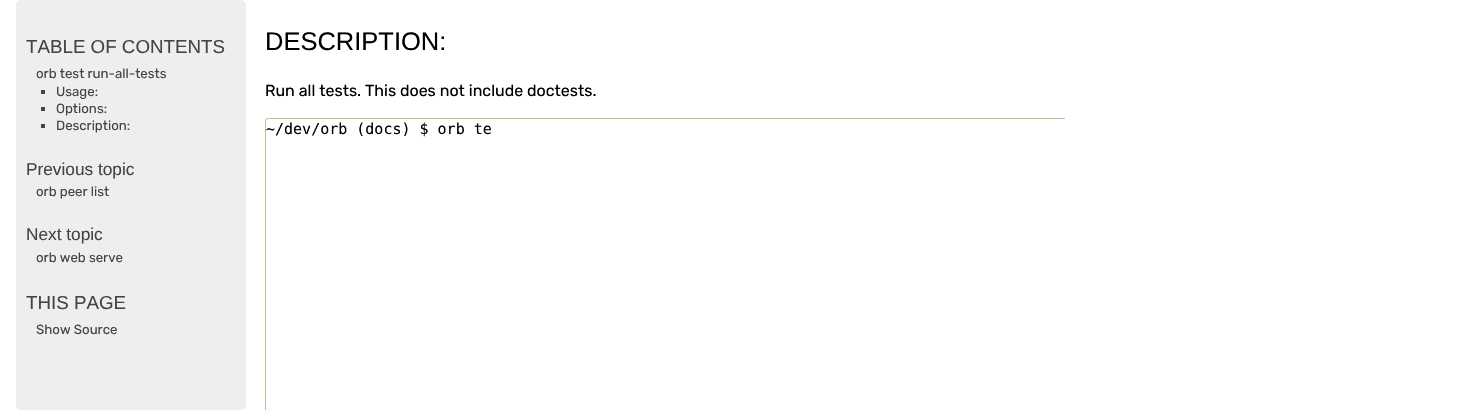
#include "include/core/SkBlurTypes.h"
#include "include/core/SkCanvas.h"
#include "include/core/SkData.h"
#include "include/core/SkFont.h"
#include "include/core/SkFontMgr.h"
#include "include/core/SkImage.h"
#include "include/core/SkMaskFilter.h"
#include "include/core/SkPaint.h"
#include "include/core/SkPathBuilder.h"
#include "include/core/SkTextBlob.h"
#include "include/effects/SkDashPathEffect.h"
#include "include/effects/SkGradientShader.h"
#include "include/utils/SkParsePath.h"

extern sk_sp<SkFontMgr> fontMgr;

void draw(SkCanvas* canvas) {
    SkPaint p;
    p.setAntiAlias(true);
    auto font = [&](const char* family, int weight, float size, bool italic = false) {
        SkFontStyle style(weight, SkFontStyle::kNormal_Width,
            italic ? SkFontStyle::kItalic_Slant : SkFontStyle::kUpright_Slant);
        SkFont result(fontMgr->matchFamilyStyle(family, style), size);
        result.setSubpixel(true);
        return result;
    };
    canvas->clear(0xFFFFFFFF);
    p.setColor(0xFFEEEEEE);
    canvas->drawRoundRect(SkRect::MakeLTRB(16, 0, 246, 410), 5, 5, p);
    auto font1 = font("Liberation Sans", 400, 18.75f);
    p.setColor(0xFF444444);
    canvas->drawString("TABLE OF CONTENTS", 26, 53, font1, p);
    auto font2 = font("Rubik", 400, 13.25f);
    canvas->drawString("orb test run-all-tests", 36, 78, font2, p);
    canvas->drawRect(SkRect::MakeLTRB(41, 90, 45, 94), p);
    canvas->drawString("Usage:", 56, 96, font2, p);
    canvas->drawRect(SkRect::MakeLTRB(41, 107, 45, 111), p);
    canvas->drawString("Options:", 56, 113, font2, p);
    canvas->drawRect(SkRect::MakeLTRB(41, 124, 45, 128), p);
    canvas->drawString("Description:", 56, 130, font2, p);
    auto font3 = font("Liberation Sans", 400, 17.25f);
    canvas->drawString("Previous topic", 26, 175, font3, p);
    canvas->drawString("orb peer list", 36, 196, font2, p);
    canvas->drawString("Next topic", 26, 240, font3, p);
    canvas->drawString("orb web serve", 36, 262, font2, p);
    canvas->drawString("THIS PAGE", 26, 309, font1, p);
    canvas->drawString("Show Source", 36, 334, font2, p);
    auto font4 = font("Liberation Sans", 400, 25.5f);
    p.setColor(0xFF000000);
    canvas->drawString("DESCRIPTION:", 265, 50, font4, p);
    auto font5 = font("Rubik", 400, 16);
    canvas->drawString("Run all tests. This does not include doctests.", 265, 96, font5, p);
    canvas->save();
    canvas->clipRect(SkRect::MakeLTRB(265, 118, 1065, 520));
    p.setStyle(SkPaint::kStroke_Style);
    p.setStrokeWidth(1);
    p.setColor(0xFFAACC99);
    canvas->drawRoundRect(SkRect::MakeLTRB(265.5f, 118.5f, 1350.5f, 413.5f), 2.5f, 2.5f, p);
    canvas->restore();
    auto font6 = font("DejaVu Sans Mono", 400, 15);
    p.setStyle(SkPaint::kFill_Style);
    p.setColor(0xFF000000);
    canvas->drawString("~/dev/orb (docs) $ orb te", 266, 134, font6, p);
}
